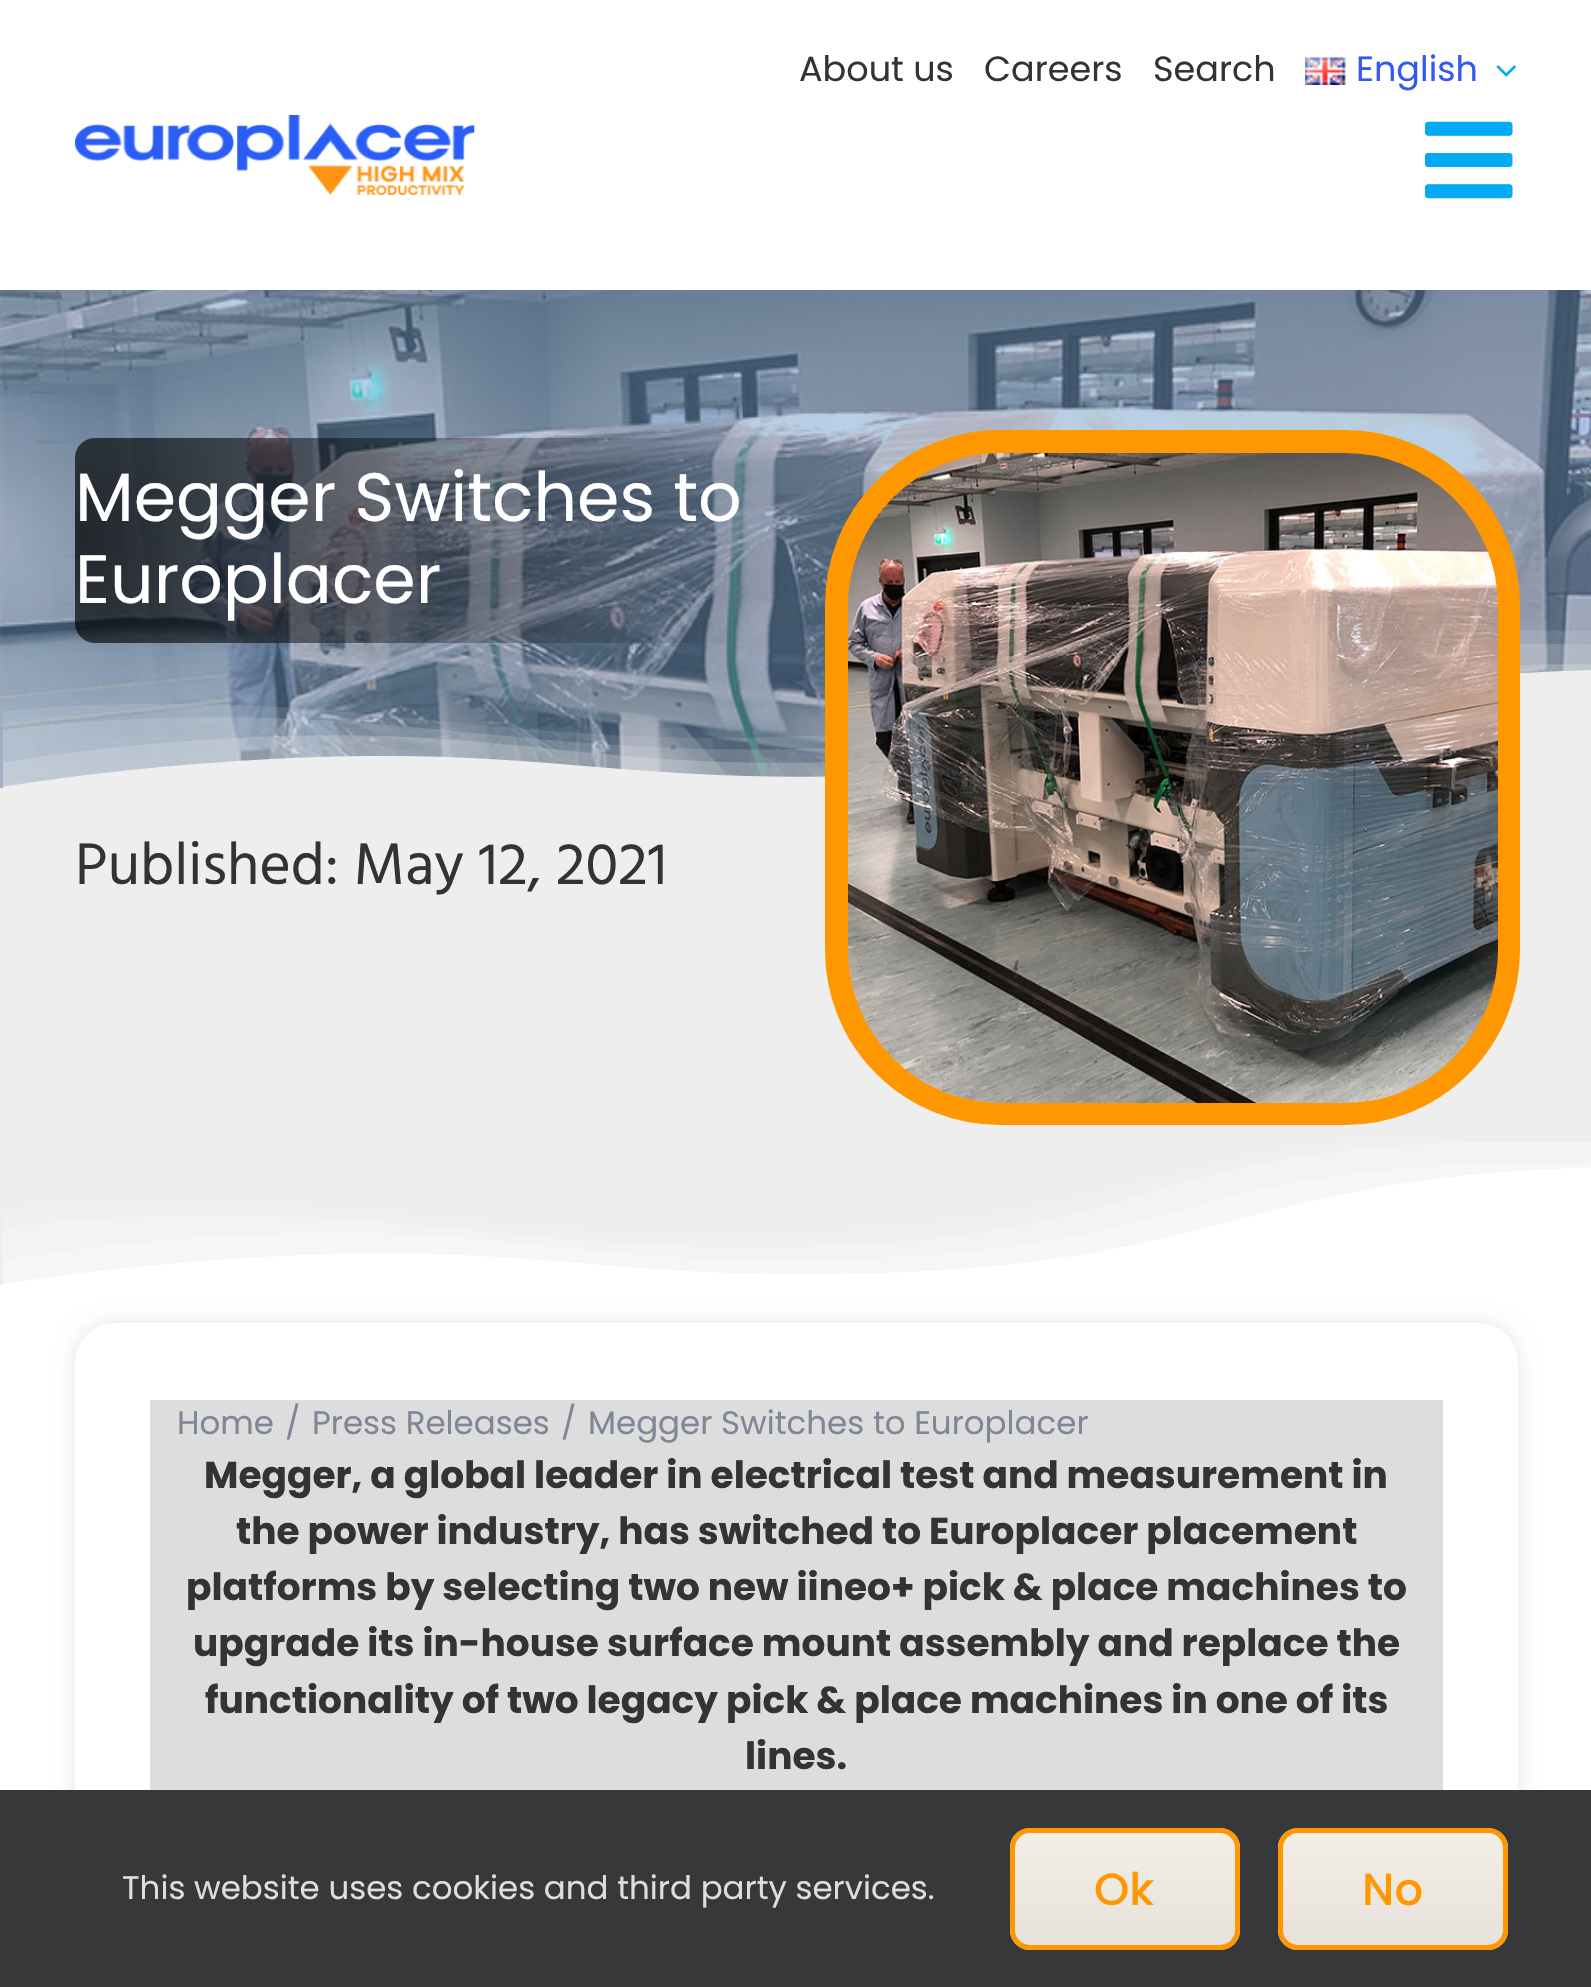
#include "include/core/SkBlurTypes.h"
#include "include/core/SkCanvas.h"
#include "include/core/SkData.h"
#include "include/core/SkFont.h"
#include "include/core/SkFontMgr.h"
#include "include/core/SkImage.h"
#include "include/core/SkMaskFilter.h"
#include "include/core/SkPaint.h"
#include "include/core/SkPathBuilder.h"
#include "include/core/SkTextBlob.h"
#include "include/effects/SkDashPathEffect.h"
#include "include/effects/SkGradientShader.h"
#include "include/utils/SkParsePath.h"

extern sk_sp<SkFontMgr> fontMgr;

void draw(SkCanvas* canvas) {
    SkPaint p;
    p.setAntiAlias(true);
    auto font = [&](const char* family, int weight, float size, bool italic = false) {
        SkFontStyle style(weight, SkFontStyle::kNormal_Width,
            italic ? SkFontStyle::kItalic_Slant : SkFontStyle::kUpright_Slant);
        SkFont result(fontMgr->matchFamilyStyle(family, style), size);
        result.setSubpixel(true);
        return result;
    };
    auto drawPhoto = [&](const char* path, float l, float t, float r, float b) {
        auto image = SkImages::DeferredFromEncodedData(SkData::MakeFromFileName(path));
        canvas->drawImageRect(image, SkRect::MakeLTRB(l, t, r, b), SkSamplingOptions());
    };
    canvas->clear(0xFFFFFFFF);
    auto font1 = font("Poppins", 400, 35);
    p.setColor(0xFF333333);
    {
        const struct { const char* s; float x, y; } items[] = {
            {"About us", 799, 81},
            {"Careers", 984, 81},
            {"Search", 1153, 81},
        };
        for (auto [s, x, y] : items) {
            canvas->drawString(s, x, y, font1, p);
        }
    }
    drawPhoto("media/1.png", 1305, 56, 1346, 85);
    p.setColor(0xFF3557F2);
    canvas->drawString("English", 1356, 81, font1, p);
    drawPhoto("media/2.png", 1496, 65, 1516, 77);
    drawPhoto("media/3.png", 75, 115, 475, 195);
    drawPhoto("media/4.png", 1425, 121, 1513, 199);
    {
        const SkColor colors[] = {0xFF74A0CE, 0xFFFFFFFF};
        const float stops[] = {0, 1};
        const SkPoint ends[] = {{-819, 1109}, {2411, 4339}};
        p.setShader(SkGradientShader::MakeLinear(ends, colors, stops, 2, SkTileMode::kClamp));
        p.setAlpha(255);
    }
    canvas->drawRect(SkRect::MakeLTRB(0, 787, 3, 788), p);
    drawPhoto("media/5.png", 0, 290, 1591, 788);
    auto font2 = font("Poppins", 400, 68.25f);
    p.setShader(nullptr);
    p.setColor(0xFFFFFFFF);
    canvas->drawString("Megger Switches to", 75, 521, font2, p);
    canvas->drawString("Europlacer", 75, 603, font2, p);
    drawPhoto("media/6.png", 3, 630, 1591, 788);
    p.setColor(0xFFEEEEEE);
    canvas->drawRect(SkRect::MakeLTRB(0, 788, 1591, 1285), p);
    auto font3 = font("Hind", 400, 60);
    p.setColor(0xFF333333);
    canvas->drawString("Published: May 12, 2021", 75, 884, font3, p);
    p.setStyle(SkPaint::kStroke_Style);
    p.setStrokeWidth(20);
    p.setColor(0xFFFF9800);
    canvas->drawRoundRect(SkRect::MakeLTRB(835, 440, 1510, 1115), 165, 165, p);
    drawPhoto("media/7.png", 848, 453, 1498, 1103);
    canvas->drawRoundRect(SkRect::MakeLTRB(838, 443, 1508, 1113), 163, 163, p);
    drawPhoto("media/8.png", 3, 1142, 1591, 1285);
    p.setStyle(SkPaint::kFill_Style);
    p.setColor(0x1A000000);
    p.setMaskFilter(SkMaskFilter::MakeBlur(kNormal_SkBlurStyle, 10));
    canvas->drawRoundRect(SkRect::MakeLTRB(75, 1323, 1518, 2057), 40, 40, p);
    p.setMaskFilter(nullptr);
    p.setColor(0xFFFFFFFF);
    canvas->drawRoundRect(SkRect::MakeLTRB(75, 1323, 1518, 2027), 40, 40, p);
    p.setColor(0xFFDDDDDD);
    canvas->drawRect(SkRect::MakeLTRB(150, 1400, 1443, 1790), p);
    auto font4 = font("Poppins", 400, 32.5f);
    p.setColor(0xFF7F8795);
    {
        const struct { const char* s; float x, y; } items[] = {
            {"Home", 177, 1434},
            {"/", 285, 1434},
            {"Press Releases", 312, 1434},
            {"/", 561, 1434},
            {"Megger Switches to Europlacer", 588, 1434},
        };
        for (auto [s, x, y] : items) {
            canvas->drawString(s, x, y, font4, p);
        }
    }
    auto font5 = font("Poppins", 700, 37.5f);
    p.setColor(0xFF333333);
    {
        const struct { const char* s; float x, y; } items[] = {
            {"Megger, a global leader in electrical test and measurement in", 204, 1488},
            {"the power industry, has switched to Europlacer placement", 236, 1544},
            {"platforms by selecting two new iineo+ pick & place machines to", 186, 1600},
            {"upgrade its in-house surface mount assembly and replace the", 193, 1656},
            {"functionality of two legacy pick & place machines in one of its", 205, 1713},
            {"lines.", 745, 1769},
        };
        for (auto [s, x, y] : items) {
            canvas->drawString(s, x, y, font5, p);
        }
    }
    p.setColor(0xFF363839);
    canvas->drawRect(SkRect::MakeLTRB(0, 1790, 1591, 1987), p);
    p.setColor(0xFFDEDEDE);
    canvas->drawString("This website uses cookies and third party services.", 122, 1899, font4, p);
    p.setColor(0xFFCDCAC4);
    canvas->drawRoundRect(SkRect::MakeLTRB(1010, 1828, 1240, 1950), 20, 20, p);
    canvas->save();
    canvas->clipPath(SkPathBuilder().moveTo(1030, 1828).lineTo(1220, 1828).cubicTo(1231, 1828, 1240, 1837, 1240, 1848).lineTo(1240, 1930).cubicTo(1240, 1941, 1231, 1950, 1220, 1950).lineTo(1030, 1950).cubicTo(1019, 1950, 1010, 1941, 1010, 1930).lineTo(1010, 1848).cubicTo(1010, 1837, 1019, 1828, 1030, 1828).close().detach(), true);
    {
        const SkColor colors[] = {0xBFFFFAF2, 0x80FFFAF2};
        const float stops[] = {0, 1};
        const SkPoint ends[] = {{1125, 1833}, {1125, 1945}};
        p.setShader(SkGradientShader::MakeLinear(ends, colors, stops, 2, SkTileMode::kClamp));
        p.setAlpha(255);
    }
    canvas->drawRect(SkRect::MakeLTRB(1010, 1833, 1240, 1945), p);
    canvas->restore();
    p.setStyle(SkPaint::kStroke_Style);
    p.setStrokeWidth(5);
    p.setShader(nullptr);
    p.setColor(0xFFFF9800);
    canvas->drawRoundRect(SkRect::MakeLTRB(1012.5f, 1830.5f, 1237.5f, 1947.5f), 17.5f, 17.5f, p);
    auto font6 = font("Poppins", 500, 45);
    p.setStyle(SkPaint::kFill_Style);
    canvas->drawString("Ok", 1094, 1905, font6, p);
    p.setColor(0xFFCDCAC4);
    canvas->drawRoundRect(SkRect::MakeLTRB(1278, 1828, 1508, 1950), 20, 20, p);
    canvas->save();
    canvas->clipPath(SkPathBuilder().moveTo(1298, 1828).lineTo(1488, 1828).cubicTo(1499, 1828, 1508, 1837, 1508, 1848).lineTo(1508, 1930).cubicTo(1508, 1941, 1499, 1950, 1488, 1950).lineTo(1298, 1950).cubicTo(1287, 1950, 1278, 1941, 1278, 1930).lineTo(1278, 1848).cubicTo(1278, 1837, 1287, 1828, 1298, 1828).close().detach(), true);
    {
        const SkColor colors[] = {0xBFFFFAF2, 0x80FFFAF2};
        const float stops[] = {0, 1};
        const SkPoint ends[] = {{1393, 1833}, {1393, 1945}};
        p.setShader(SkGradientShader::MakeLinear(ends, colors, stops, 2, SkTileMode::kClamp));
        p.setAlpha(255);
    }
    canvas->drawRect(SkRect::MakeLTRB(1278, 1833, 1508, 1945), p);
    canvas->restore();
    p.setStyle(SkPaint::kStroke_Style);
    p.setShader(nullptr);
    p.setColor(0xFFFF9800);
    canvas->drawRoundRect(SkRect::MakeLTRB(1280.5f, 1830.5f, 1505.5f, 1947.5f), 17.5f, 17.5f, p);
    p.setStyle(SkPaint::kFill_Style);
    canvas->drawString("No", 1362, 1905, font6, p);
}
